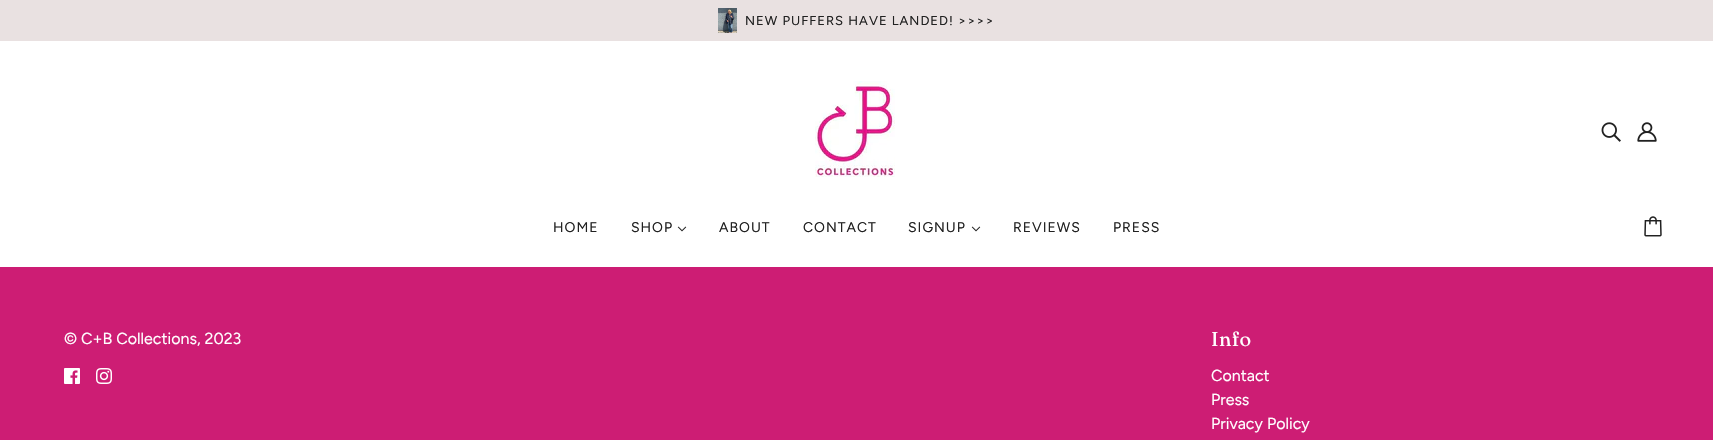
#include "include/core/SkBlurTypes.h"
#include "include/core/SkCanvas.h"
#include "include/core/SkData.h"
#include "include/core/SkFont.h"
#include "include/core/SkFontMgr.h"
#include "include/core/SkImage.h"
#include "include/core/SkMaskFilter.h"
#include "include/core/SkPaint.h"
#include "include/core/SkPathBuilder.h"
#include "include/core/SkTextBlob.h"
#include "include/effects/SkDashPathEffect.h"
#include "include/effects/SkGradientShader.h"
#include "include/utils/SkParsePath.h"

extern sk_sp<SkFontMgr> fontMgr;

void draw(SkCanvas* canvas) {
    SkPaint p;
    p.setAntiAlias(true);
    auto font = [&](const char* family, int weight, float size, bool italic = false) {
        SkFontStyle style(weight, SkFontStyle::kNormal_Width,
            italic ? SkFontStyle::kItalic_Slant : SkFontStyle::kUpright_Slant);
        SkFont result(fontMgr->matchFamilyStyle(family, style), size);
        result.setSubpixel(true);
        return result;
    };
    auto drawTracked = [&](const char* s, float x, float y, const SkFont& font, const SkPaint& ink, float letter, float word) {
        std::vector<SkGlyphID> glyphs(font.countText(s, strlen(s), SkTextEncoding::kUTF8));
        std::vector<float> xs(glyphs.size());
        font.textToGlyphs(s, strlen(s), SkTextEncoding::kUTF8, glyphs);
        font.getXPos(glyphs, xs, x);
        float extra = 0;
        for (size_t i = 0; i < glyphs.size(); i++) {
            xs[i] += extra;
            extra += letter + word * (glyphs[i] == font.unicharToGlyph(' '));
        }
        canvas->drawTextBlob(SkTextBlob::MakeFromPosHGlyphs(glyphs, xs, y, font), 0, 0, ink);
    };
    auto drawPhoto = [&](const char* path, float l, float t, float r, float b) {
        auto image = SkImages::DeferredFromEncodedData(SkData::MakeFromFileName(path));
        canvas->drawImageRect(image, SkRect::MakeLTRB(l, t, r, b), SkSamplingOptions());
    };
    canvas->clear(0xFFFFFFFF);
    p.setColor(0xFFE9E1E1);
    canvas->drawRect(SkRect::MakeLTRB(0, 0, 1713, 41), p);
    drawPhoto("media/1.png", 718, 8, 737, 33);
    auto font1 = font("Figtree", 400, 13);
    p.setColor(0xFF212121);
    drawTracked("NEW PUFFERS HAVE LANDED! >>>>", 745, 25, font1, p, 1, 0);
    drawPhoto("media/2.png", 815, 81, 895, 177);
    drawPhoto("media/3.png", 1601, 122, 1621, 142);
    drawPhoto("media/4.png", 1637, 122, 1657, 142);
    auto font2 = font("Figtree", 400, 14);
    drawTracked("HOME", 553, 232, font2, p, 1, 0);
    drawTracked("SHOP", 631, 232, font2, p, 1, 0);
    drawPhoto("media/5.png", 677, 226, 687, 232);
    {
        const struct { const char* s; float x, y; } items[] = {
            {"ABOUT", 719, 232},
            {"CONTACT", 803, 232},
            {"SIGNUP", 908, 232},
        };
        for (auto [s, x, y] : items) {
            drawTracked(s, x, y, font2, p, 1, 0);
        }
    }
    drawPhoto("media/5.png", 971, 226, 981, 232);
    drawTracked("REVIEWS", 1013, 232, font2, p, 1, 0);
    drawTracked("PRESS", 1113, 232, font2, p, 1, 0);
    drawPhoto("media/6.png", 1644, 216, 1662, 237);
    p.setColor(0xFFCD1D74);
    canvas->drawRect(SkRect::MakeLTRB(0, 267, 1713, 440), p);
    auto font3 = font("Figtree", 400, 16);
    p.setColor(0xFFFFFFFF);
    canvas->drawString("© C+B Collections, 2023", 64, 344, font3, p);
    drawPhoto("media/7.png", 64, 368, 80, 384);
    drawPhoto("media/8.png", 96, 368, 112, 384);
    auto font4 = font("Fraunces", 400, 20);
    drawTracked("Info", 1211, 346, font4, p, 0.5f, 0);
    {
        const struct { const char* s; float x, y; } items[] = {
            {"Contact", 1211, 381},
            {"Press", 1211, 405},
            {"Privacy Policy", 1211, 429},
        };
        for (auto [s, x, y] : items) {
            canvas->drawString(s, x, y, font3, p);
        }
    }
}
